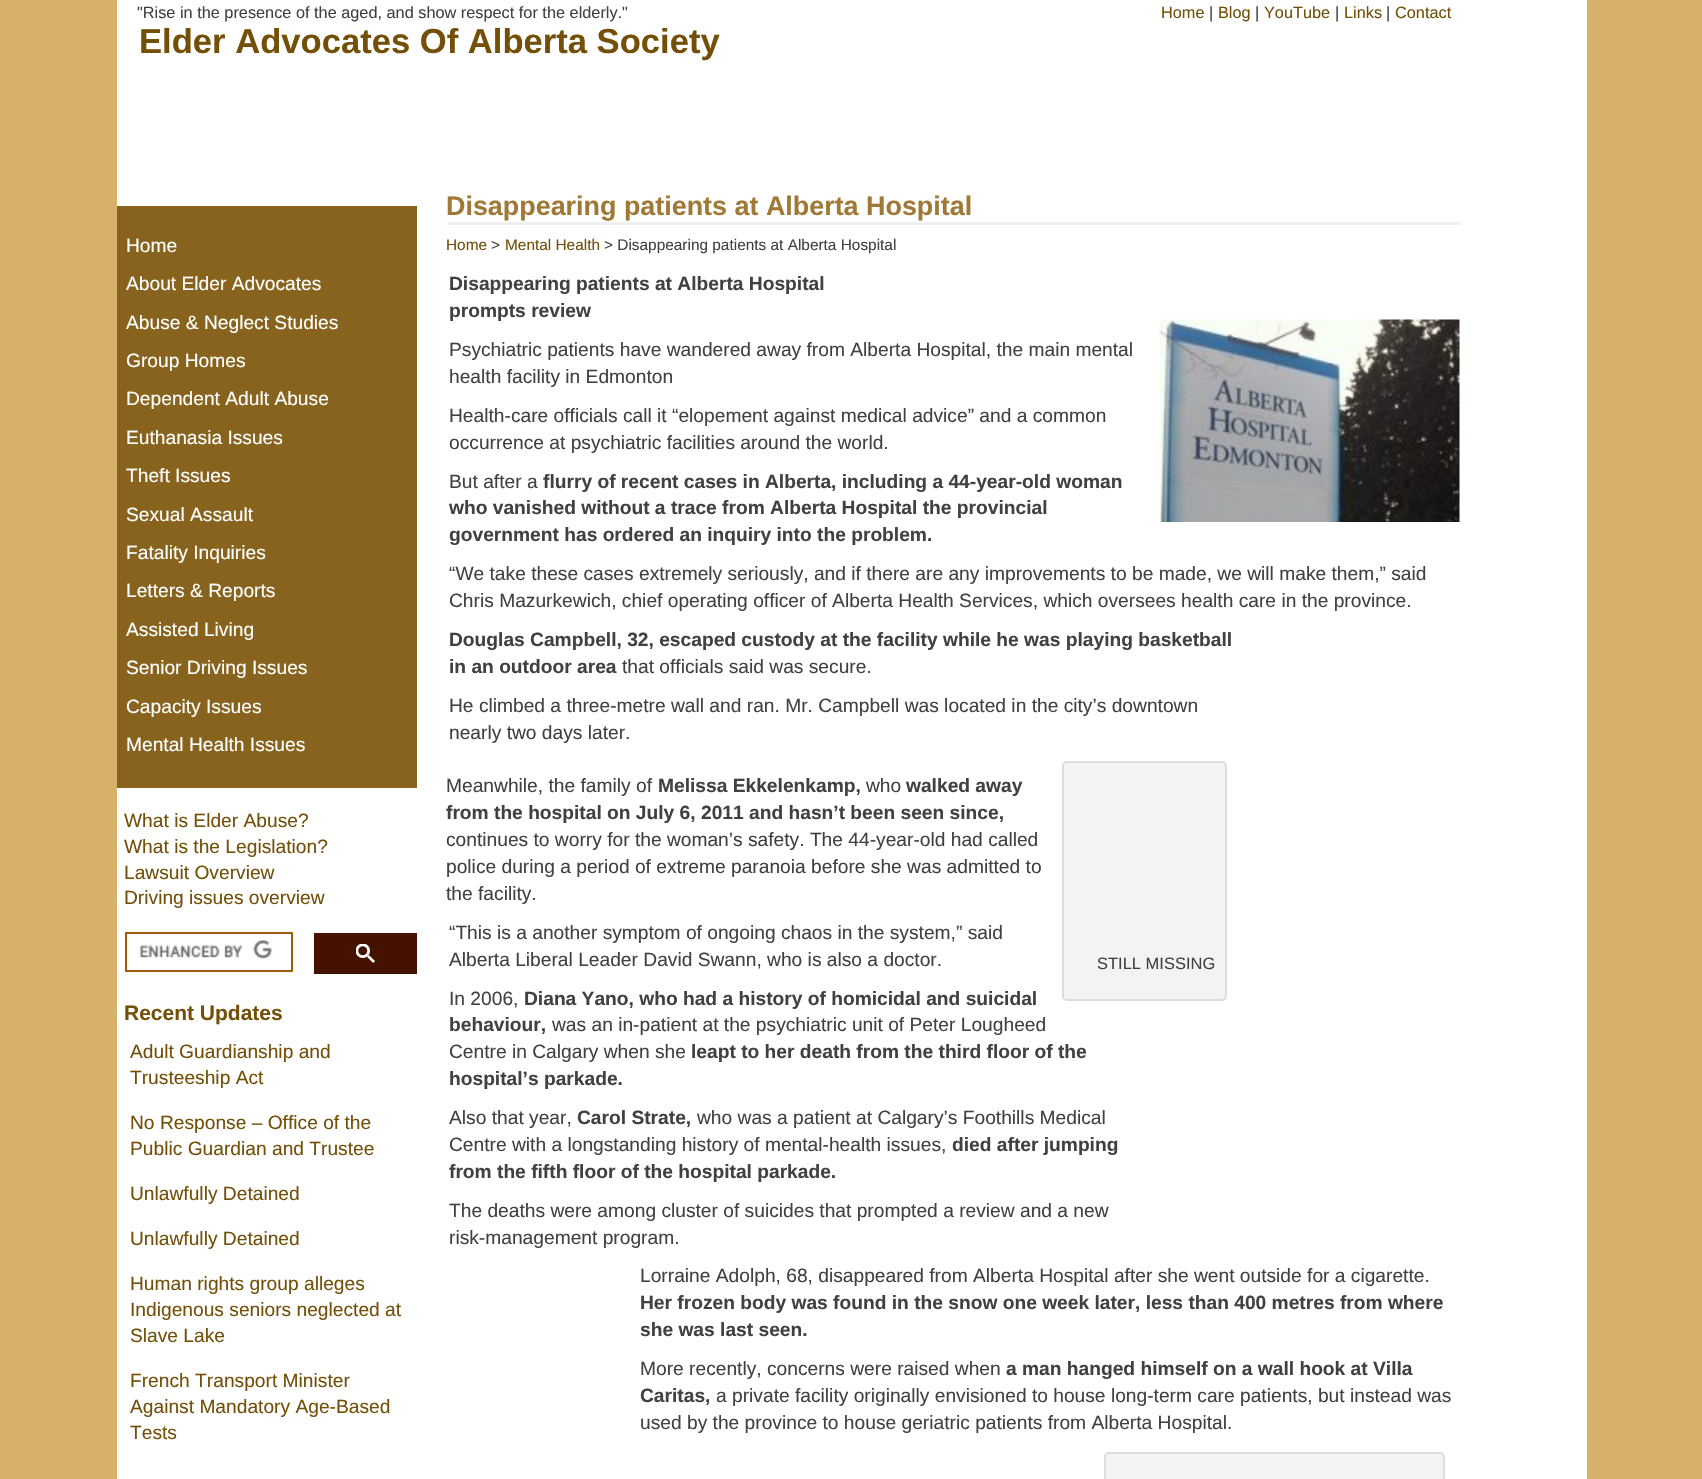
#include "include/core/SkBlurTypes.h"
#include "include/core/SkCanvas.h"
#include "include/core/SkData.h"
#include "include/core/SkFont.h"
#include "include/core/SkFontMgr.h"
#include "include/core/SkImage.h"
#include "include/core/SkMaskFilter.h"
#include "include/core/SkPaint.h"
#include "include/core/SkPathBuilder.h"
#include "include/core/SkTextBlob.h"
#include "include/effects/SkDashPathEffect.h"
#include "include/effects/SkGradientShader.h"
#include "include/utils/SkParsePath.h"

extern sk_sp<SkFontMgr> fontMgr;

void draw(SkCanvas* canvas) {
    SkPaint p;
    p.setAntiAlias(true);
    auto font = [&](const char* family, int weight, float size, bool italic = false) {
        SkFontStyle style(weight, SkFontStyle::kNormal_Width,
            italic ? SkFontStyle::kItalic_Slant : SkFontStyle::kUpright_Slant);
        SkFont result(fontMgr->matchFamilyStyle(family, style), size);
        result.setSubpixel(true);
        return result;
    };
    auto drawPhoto = [&](const char* path, float l, float t, float r, float b) {
        auto image = SkImages::DeferredFromEncodedData(SkData::MakeFromFileName(path));
        canvas->drawImageRect(image, SkRect::MakeLTRB(l, t, r, b), SkSamplingOptions());
    };
    canvas->clear(0xFFD7B06A);
    p.setColor(0xFFFFFFFF);
    canvas->drawRect(SkRect::MakeLTRB(117, 0, 1587, 1479), p);
    auto font1 = font("Liberation Sans", 400, 16.3f);
    p.setColor(0xFF414141);
    canvas->drawString("\"Rise in the presence of the aged, and show respect for the elderly.\"", 137, 18, font1, p);
    p.setColor(0xFF734F07);
    canvas->drawString("Home", 1161, 18, font1, p);
    p.setColor(0xFF414141);
    canvas->drawString("|", 1209, 18, font1, p);
    p.setColor(0xFF734F07);
    canvas->drawString("Blog", 1218, 18, font1, p);
    p.setColor(0xFF414141);
    canvas->drawString("|", 1255, 18, font1, p);
    p.setColor(0xFF734F07);
    canvas->drawString("YouTube", 1264, 18, font1, p);
    p.setColor(0xFF414141);
    canvas->drawString("|", 1335, 18, font1, p);
    p.setColor(0xFF734F07);
    canvas->drawString("Links", 1344, 18, font1, p);
    p.setColor(0xFF414141);
    canvas->drawString("|", 1386, 18, font1, p);
    p.setColor(0xFF734F07);
    canvas->drawString("Contact", 1395, 18, font1, p);
    auto font2 = font("Liberation Sans", 700, 34.6f);
    canvas->drawString("Elder Advocates Of Alberta Society", 139, 53, font2, p);
    p.setColor(0xFF88631E);
    canvas->drawRect(SkRect::MakeLTRB(117, 206, 417, 788), p);
    auto font3 = font("Liberation Sans", 400, 19.2f);
    p.setColor(0xFFFFFFFF);
    {
        const struct { const char* s; float x, y; } items[] = {
            {"Home", 126, 252},
            {"About Elder Advocates", 126, 290},
            {"Abuse & Neglect Studies", 126, 329},
            {"Group Homes", 126, 367},
            {"Dependent Adult Abuse", 126, 405},
            {"Euthanasia Issues", 126, 444},
            {"Theft Issues", 126, 482},
            {"Sexual Assault", 126, 521},
            {"Fatality Inquiries", 126, 559},
            {"Letters & Reports", 126, 597},
            {"Assisted Living", 126, 636},
            {"Senior Driving Issues", 126, 674},
            {"Capacity Issues", 126, 713},
            {"Mental Health Issues", 126, 751},
        };
        for (auto [s, x, y] : items) {
            canvas->drawString(s, x, y, font3, p);
        }
    }
    p.setColor(0xFF734F07);
    {
        const struct { const char* s; float x, y; } items[] = {
            {"What is Elder Abuse?", 124, 827},
            {"What is the Legislation?", 124, 853},
            {"Lawsuit Overview", 124, 879},
            {"Driving issues overview", 124, 904},
        };
        for (auto [s, x, y] : items) {
            canvas->drawString(s, x, y, font3, p);
        }
    }
    p.setStyle(SkPaint::kStroke_Style);
    p.setStrokeWidth(2);
    p.setColor(0xFFA25B08);
    canvas->drawRect(SkRect::MakeLTRB(126, 933, 292, 971), p);
    drawPhoto("media/1.png", 139, 940, 272, 959);
    p.setStyle(SkPaint::kFill_Style);
    p.setColor(0xFF461200);
    canvas->drawRect(SkRect::MakeLTRB(314, 933, 417, 974), p);
    drawPhoto("media/2.png", 356, 944, 375, 963);
    auto font4 = font("Liberation Sans", 700, 21);
    p.setColor(0xFF734F07);
    canvas->drawString("Recent Updates", 124, 1020, font4, p);
    {
        const struct { const char* s; float x, y; } items[] = {
            {"Adult Guardianship and", 130, 1058},
            {"Trusteeship Act", 130, 1084},
            {"No Response – Office of the", 130, 1129},
            {"Public Guardian and Trustee", 130, 1155},
            {"Unlawfully Detained", 130, 1200},
            {"Unlawfully Detained", 130, 1245},
            {"Human rights group alleges", 130, 1290},
            {"Indigenous seniors neglected at", 130, 1316},
            {"Slave Lake", 130, 1342},
            {"French Transport Minister", 130, 1387},
            {"Against Mandatory Age-Based", 130, 1413},
            {"Tests", 130, 1439},
        };
        for (auto [s, x, y] : items) {
            canvas->drawString(s, x, y, font3, p);
        }
    }
    p.setColor(0xFFF0F0F0);
    canvas->drawRect(SkRect::MakeLTRB(447, 222, 1460, 225), p);
    auto font5 = font("Liberation Sans", 700, 26.9f);
    p.setColor(0xFF9F7935);
    canvas->drawString("Disappearing patients at Alberta Hospital", 446, 215, font5, p);
    auto font6 = font("Liberation Sans", 400, 15.4f);
    p.setColor(0xFF734F07);
    canvas->drawString("Home", 446, 250, font6, p);
    p.setColor(0xFF414141);
    canvas->drawString(">", 491, 250, font6, p);
    p.setColor(0xFF734F07);
    canvas->drawString("Mental Health", 505, 250, font6, p);
    p.setColor(0xFF414141);
    canvas->drawString("> Disappearing patients at Alberta Hospital", 604, 250, font6, p);
    auto font7 = font("Liberation Sans", 700, 19.2f);
    canvas->drawString("Disappearing patients at Alberta Hospital", 449, 290, font7, p);
    canvas->drawString("prompts review", 449, 317, font7, p);
    drawPhoto("media/3.png", 1159, 319, 1460, 522);
    {
        const struct { const char* s; float x, y; } items[] = {
            {"Psychiatric patients have wandered away from Alberta Hospital, the main mental", 449, 356},
            {"health facility in Edmonton", 449, 383},
            {"Health-care officials call it “elopement against medical advice” and a common", 449, 422},
            {"occurrence at psychiatric facilities around the world.", 449, 449},
            {"But after a", 449, 488},
        };
        for (auto [s, x, y] : items) {
            canvas->drawString(s, x, y, font3, p);
        }
    }
    {
        const struct { const char* s; float x, y; } items[] = {
            {"flurry of recent cases in Alberta, including a 44-year-old woman", 543, 488},
            {"who vanished without a trace from Alberta Hospital the provincial", 449, 514},
            {"government has ordered an inquiry into the problem.", 449, 541},
        };
        for (auto [s, x, y] : items) {
            canvas->drawString(s, x, y, font7, p);
        }
    }
    canvas->drawString("“We take these cases extremely seriously, and if there are any improvements to be made, we will make them,” said", 449, 580, font3, p);
    canvas->drawString("Chris Mazurkewich, chief operating officer of Alberta Health Services, which oversees health care in the province.", 449, 607, font3, p);
    canvas->drawString("Douglas Campbell, 32, escaped custody at the facility while he was playing basketball", 449, 646, font7, p);
    canvas->drawString("in an outdoor area", 449, 673, font7, p);
    {
        const struct { const char* s; float x, y; } items[] = {
            {"that officials said was secure.", 622, 673},
            {"He climbed a three-metre wall and ran. Mr. Campbell was located in the city’s downtown", 449, 712},
            {"nearly two days later.", 449, 739},
            {"Meanwhile, the family of", 446, 792},
        };
        for (auto [s, x, y] : items) {
            canvas->drawString(s, x, y, font3, p);
        }
    }
    canvas->drawString("Melissa Ekkelenkamp,", 658, 792, font7, p);
    canvas->drawString("who", 866, 792, font3, p);
    canvas->drawString("walked away", 906, 792, font7, p);
    canvas->drawString("from the hospital on July 6, 2011 and hasn’t been seen since,", 446, 819, font7, p);
    {
        const struct { const char* s; float x, y; } items[] = {
            {"continues to worry for the woman’s safety. The 44-year-old had called", 446, 846},
            {"police during a period of extreme paranoia before she was admitted to", 446, 873},
            {"the facility.", 446, 900},
            {"“This is a another symptom of ongoing chaos in the system,” said", 449, 939},
            {"Alberta Liberal Leader David Swann, who is also a doctor.", 449, 966},
        };
        for (auto [s, x, y] : items) {
            canvas->drawString(s, x, y, font3, p);
        }
    }
    p.setColor(0xFFF3F3F3);
    canvas->drawRoundRect(SkRect::MakeLTRB(1063, 762, 1226, 1000), 4, 4, p);
    p.setStyle(SkPaint::kStroke_Style);
    p.setColor(0xFFDDDDDD);
    canvas->drawRoundRect(SkRect::MakeLTRB(1063, 762, 1226, 1000), 4, 4, p);
    auto font8 = font("Liberation Sans", 400, 16.5f);
    p.setStyle(SkPaint::kFill_Style);
    p.setColor(0xFF414141);
    canvas->drawString("STILL MISSING", 1097, 969, font8, p);
    canvas->drawString("In 2006,", 449, 1005, font3, p);
    canvas->drawString("Diana Yano, who had a history of homicidal and suicidal", 524, 1005, font7, p);
    canvas->drawString("behaviour,", 449, 1031, font7, p);
    canvas->drawString("was an in-patient at the psychiatric unit of Peter Lougheed", 552, 1031, font3, p);
    canvas->drawString("Centre in Calgary when she", 449, 1058, font3, p);
    canvas->drawString("leapt to her death from the third floor of the", 691, 1058, font7, p);
    canvas->drawString("hospital’s parkade.", 449, 1085, font7, p);
    canvas->drawString("Also that year,", 449, 1124, font3, p);
    canvas->drawString("Carol Strate,", 577, 1124, font7, p);
    canvas->drawString("who was a patient at Calgary’s Foothills Medical", 697, 1124, font3, p);
    canvas->drawString("Centre with a longstanding history of mental-health issues,", 449, 1151, font3, p);
    canvas->drawString("died after jumping", 952, 1151, font7, p);
    canvas->drawString("from the fifth floor of the hospital parkade.", 449, 1178, font7, p);
    {
        const struct { const char* s; float x, y; } items[] = {
            {"The deaths were among cluster of suicides that prompted a review and a new", 449, 1217},
            {"risk-management program.", 449, 1244},
            {"Lorraine Adolph, 68, disappeared from Alberta Hospital after she went outside for a cigarette.", 640, 1282},
        };
        for (auto [s, x, y] : items) {
            canvas->drawString(s, x, y, font3, p);
        }
    }
    canvas->drawString("Her frozen body was found in the snow one week later, less than 400 metres from where", 640, 1309, font7, p);
    canvas->drawString("she was last seen.", 640, 1336, font7, p);
    canvas->drawString("More recently, concerns were raised when", 640, 1375, font3, p);
    canvas->drawString("a man hanged himself on a wall hook at Villa", 1006, 1375, font7, p);
    canvas->drawString("Caritas,", 640, 1402, font7, p);
    canvas->drawString("a private facility originally envisioned to house long-term care patients, but instead was", 716, 1402, font3, p);
    canvas->drawString("used by the province to house geriatric patients from Alberta Hospital.", 640, 1429, font3, p);
    p.setColor(0xFFF3F3F3);
    canvas->drawRoundRect(SkRect::MakeLTRB(1105, 1453, 1444, 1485), 4, 4, p);
    p.setStyle(SkPaint::kStroke_Style);
    p.setColor(0xFFDDDDDD);
    canvas->drawRoundRect(SkRect::MakeLTRB(1105, 1453, 1444, 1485), 4, 4, p);
}
